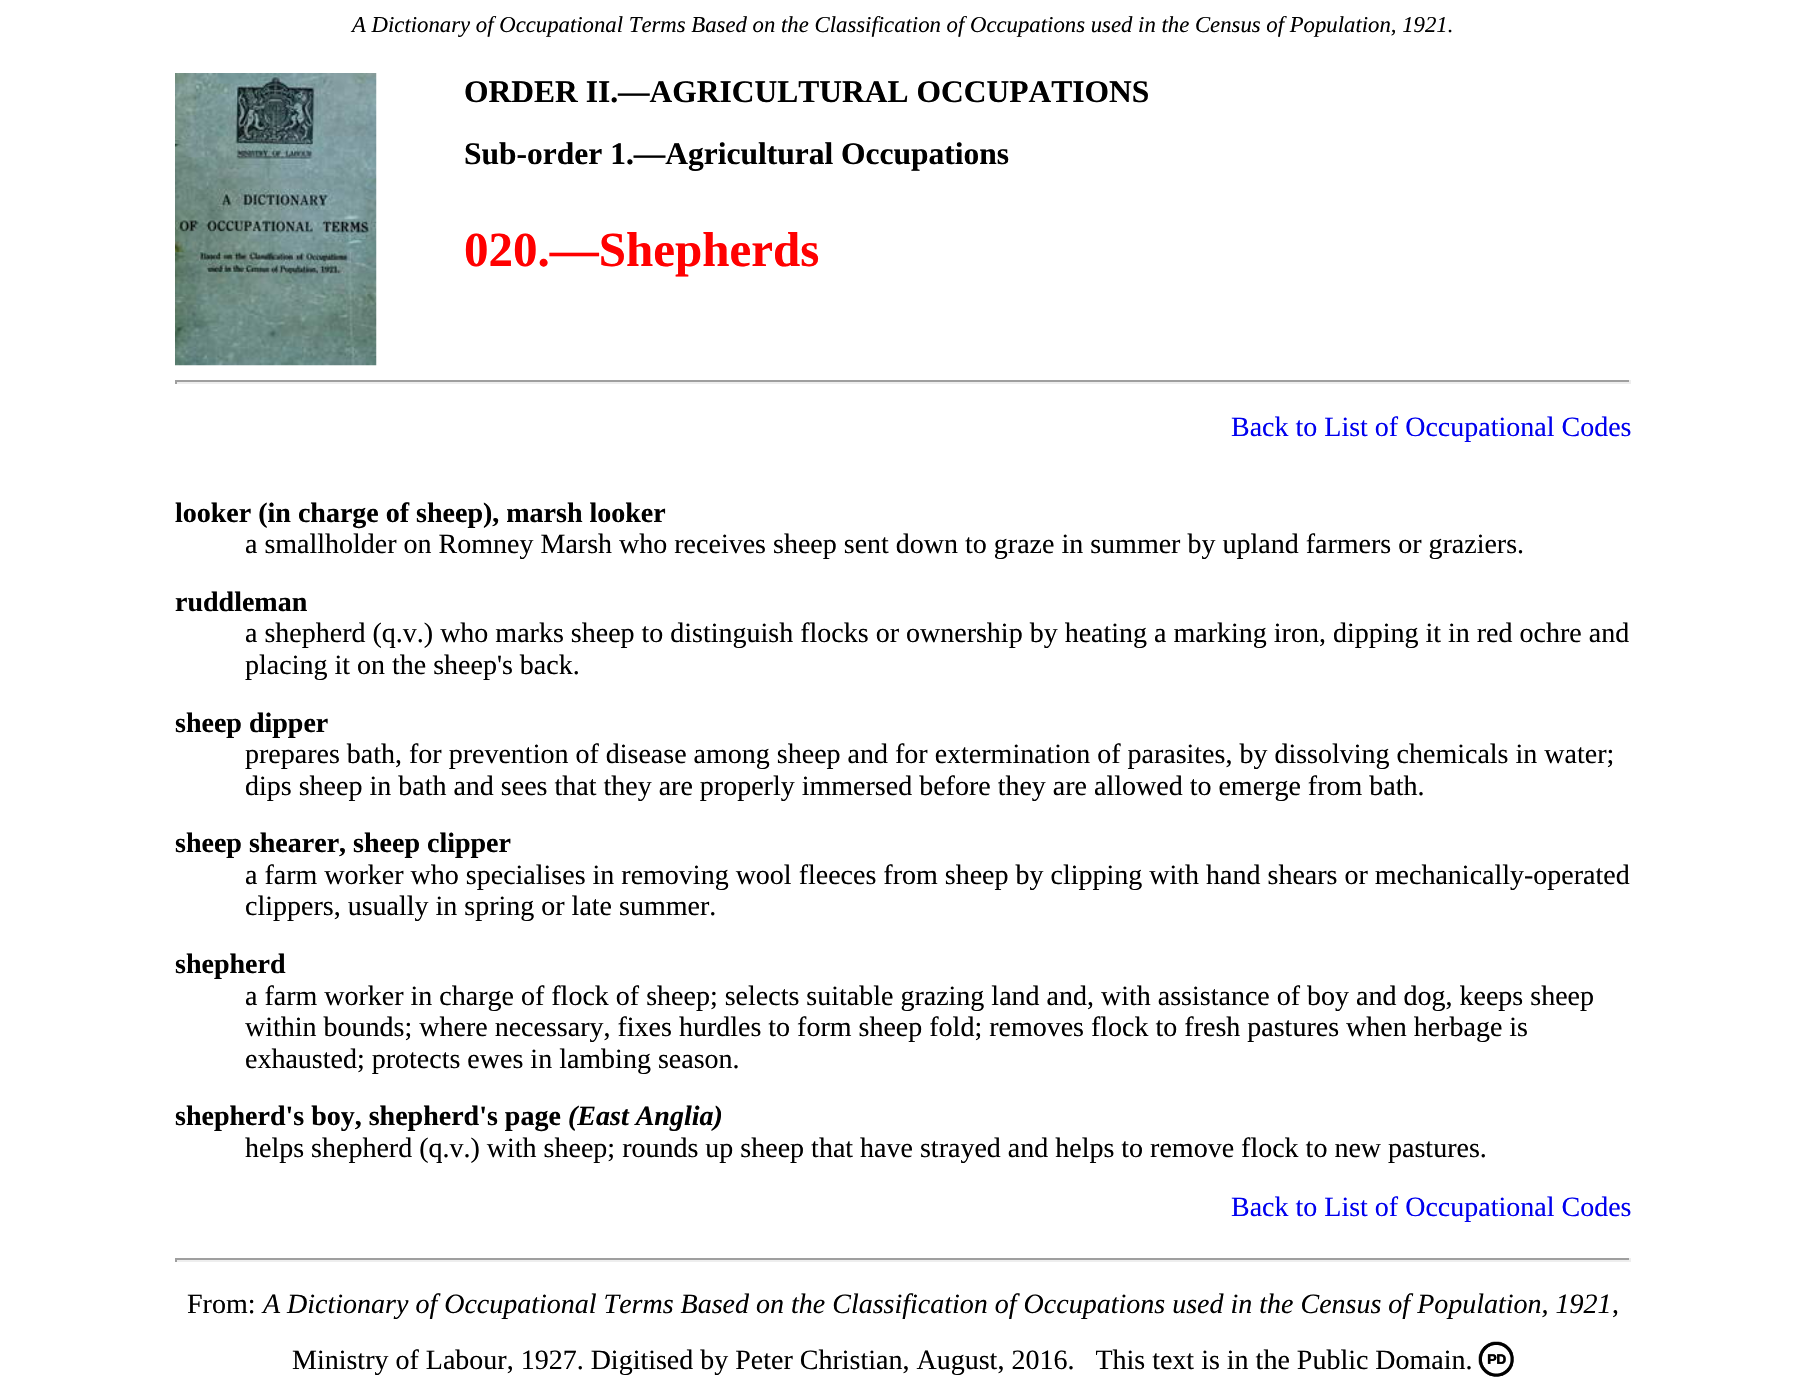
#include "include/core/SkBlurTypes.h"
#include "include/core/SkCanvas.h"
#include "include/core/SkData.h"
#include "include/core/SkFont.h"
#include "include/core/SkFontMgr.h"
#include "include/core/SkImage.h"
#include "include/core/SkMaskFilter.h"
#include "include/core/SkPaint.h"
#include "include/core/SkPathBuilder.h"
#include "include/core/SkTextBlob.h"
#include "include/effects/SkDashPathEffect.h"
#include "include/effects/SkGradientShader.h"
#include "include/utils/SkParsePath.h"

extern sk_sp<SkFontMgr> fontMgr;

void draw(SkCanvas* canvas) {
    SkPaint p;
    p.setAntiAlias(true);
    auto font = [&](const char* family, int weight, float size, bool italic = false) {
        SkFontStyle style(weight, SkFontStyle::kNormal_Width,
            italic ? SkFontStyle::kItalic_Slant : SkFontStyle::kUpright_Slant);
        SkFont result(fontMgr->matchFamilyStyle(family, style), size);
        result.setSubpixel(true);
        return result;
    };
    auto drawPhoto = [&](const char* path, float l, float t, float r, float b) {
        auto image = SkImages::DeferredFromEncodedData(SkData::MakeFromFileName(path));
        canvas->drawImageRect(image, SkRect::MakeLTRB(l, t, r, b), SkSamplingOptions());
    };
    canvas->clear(0xFFFFFFFF);
    auto font1 = font("Liberation Serif", 400, 22.75f, true);
    p.setColor(0xFF000000);
    canvas->drawString("A Dictionary of Occupational Terms Based on the Classification of Occupations used in the Census of Population, 1921.", 352, 32, font1, p);
    drawPhoto("media/1.png", 175, 73, 377, 366);
    auto font2 = font("Liberation Serif", 700, 31.5f);
    canvas->drawString("ORDER II.—AGRICULTURAL OCCUPATIONS", 464, 102, font2, p);
    canvas->drawString("Sub-order 1.—Agricultural Occupations", 464, 164, font2, p);
    auto font3 = font("Liberation Serif", 700, 49);
    p.setColor(0xFFFF0000);
    canvas->drawString("020.—Shepherds", 464, 266, font3, p);
    {
        const struct { float l, t, r, b; SkColor color; } items[] = {
            {175, 380, 1631, 382, 0xFF9F9F9F},
            {1629, 380, 1631, 384, 0xFFEEEEEE},
            {175, 382, 1631, 384, 0xFFEEEEEE},
            {175, 380, 177, 384, 0xFF9F9F9F},
        };
        for (auto [l, t, r, b, color] : items) {
            p.setColor(color);
            canvas->drawRect(SkRect::MakeLTRB(l, t, r, b), p);
        }
    }
    auto font4 = font("Liberation Serif", 400, 28);
    p.setColor(0xFF0000EE);
    canvas->drawString("Back to List of Occupational Codes", 1231, 436, font4, p);
    auto font5 = font("Liberation Serif", 700, 28);
    p.setColor(0xFF000000);
    canvas->drawString("looker (in charge of sheep), marsh looker", 175, 522, font5, p);
    canvas->drawString("a smallholder on Romney Marsh who receives sheep sent down to graze in summer by upland farmers or graziers.", 245, 553, font4, p);
    canvas->drawString("ruddleman", 175, 611, font5, p);
    canvas->drawString("a shepherd (q.v.) who marks sheep to distinguish flocks or ownership by heating a marking iron, dipping it in red ochre and", 245, 642, font4, p);
    canvas->drawString("placing it on the sheep's back.", 245, 674, font4, p);
    canvas->drawString("sheep dipper", 175, 732, font5, p);
    canvas->drawString("prepares bath, for prevention of disease among sheep and for extermination of parasites, by dissolving chemicals in water;", 245, 763, font4, p);
    canvas->drawString("dips sheep in bath and sees that they are properly immersed before they are allowed to emerge from bath.", 245, 795, font4, p);
    canvas->drawString("sheep shearer, sheep clipper", 175, 852, font5, p);
    canvas->drawString("a farm worker who specialises in removing wool fleeces from sheep by clipping with hand shears or mechanically-operated", 245, 884, font4, p);
    canvas->drawString("clippers, usually in spring or late summer.", 245, 915, font4, p);
    canvas->drawString("shepherd", 175, 973, font5, p);
    {
        const struct { const char* s; float x, y; } items[] = {
            {"a farm worker in charge of flock of sheep; selects suitable grazing land and, with assistance of boy and dog, keeps sheep", 245, 1005},
            {"within bounds; where necessary, fixes hurdles to form sheep fold; removes flock to fresh pastures when herbage is", 245, 1036},
            {"exhausted; protects ewes in lambing season.", 245, 1068},
        };
        for (auto [s, x, y] : items) {
            canvas->drawString(s, x, y, font4, p);
        }
    }
    canvas->drawString("shepherd's boy, shepherd's page", 175, 1125, font5, p);
    auto font6 = font("Liberation Serif", 700, 28, true);
    canvas->drawString("(East Anglia)", 568, 1125, font6, p);
    canvas->drawString("helps shepherd (q.v.) with sheep; rounds up sheep that have strayed and helps to remove flock to new pastures.", 245, 1157, font4, p);
    p.setColor(0xFF0000EE);
    canvas->drawString("Back to List of Occupational Codes", 1231, 1216, font4, p);
    {
        const struct { float l, t, r, b; SkColor color; } items[] = {
            {175, 1258, 1631, 1260, 0xFF9F9F9F},
            {1629, 1258, 1631, 1262, 0xFFEEEEEE},
            {175, 1260, 1631, 1262, 0xFFEEEEEE},
            {175, 1258, 177, 1262, 0xFF9F9F9F},
        };
        for (auto [l, t, r, b, color] : items) {
            p.setColor(color);
            canvas->drawRect(SkRect::MakeLTRB(l, t, r, b), p);
        }
    }
    p.setColor(0xFF000000);
    canvas->drawString("From:", 187, 1313, font4, p);
    auto font7 = font("Liberation Serif", 400, 28, true);
    canvas->drawString("A Dictionary of Occupational Terms Based on the Classification of Occupations used in the Census of Population, 1921", 263, 1313, font7, p);
    canvas->drawString(",", 1612, 1313, font4, p);
    canvas->drawString("Ministry of Labour, 1927. Digitised by Peter Christian, August, 2016.   This text is in the Public Domain.", 292, 1369, font4, p);
    drawPhoto("media/2.png", 1478, 1341, 1514, 1377);
}
